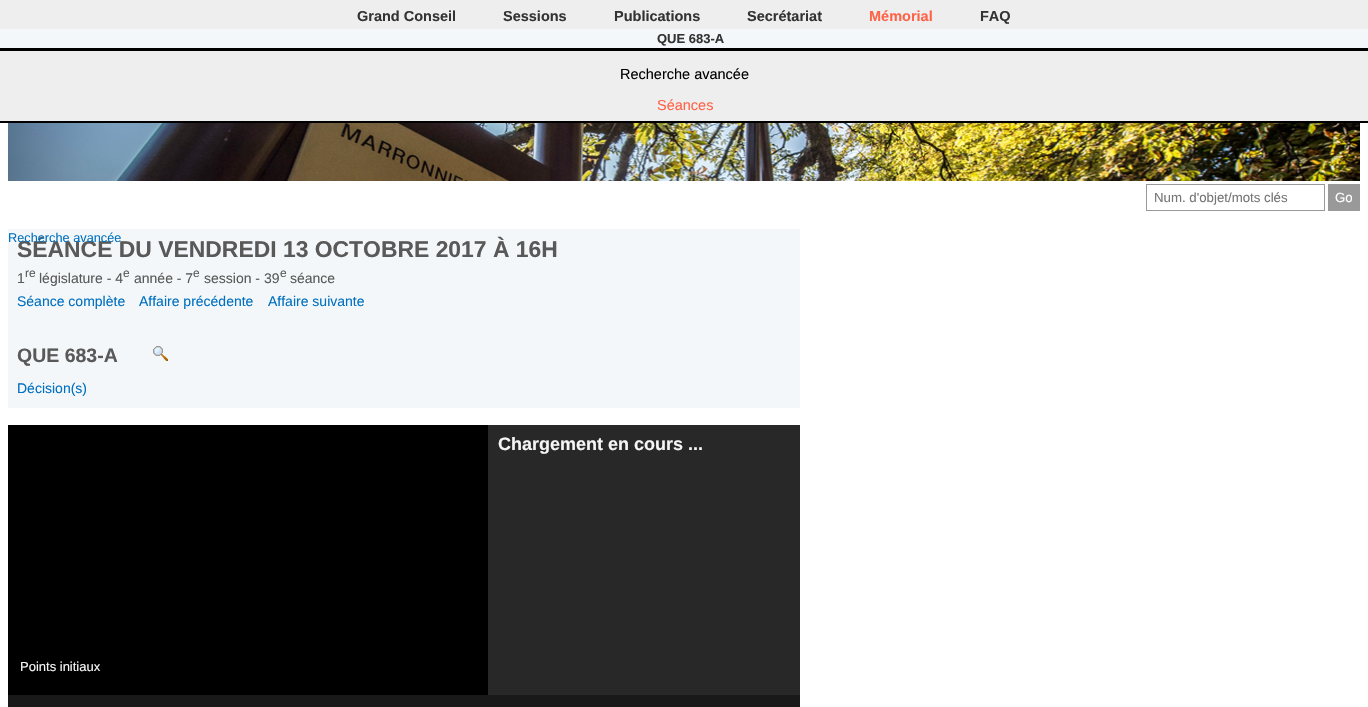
#include "include/core/SkBlurTypes.h"
#include "include/core/SkCanvas.h"
#include "include/core/SkData.h"
#include "include/core/SkFont.h"
#include "include/core/SkFontMgr.h"
#include "include/core/SkImage.h"
#include "include/core/SkMaskFilter.h"
#include "include/core/SkPaint.h"
#include "include/core/SkPathBuilder.h"
#include "include/core/SkTextBlob.h"
#include "include/effects/SkDashPathEffect.h"
#include "include/effects/SkGradientShader.h"
#include "include/utils/SkParsePath.h"

extern sk_sp<SkFontMgr> fontMgr;

void draw(SkCanvas* canvas) {
    SkPaint p;
    p.setAntiAlias(true);
    auto font = [&](const char* family, int weight, float size, bool italic = false) {
        SkFontStyle style(weight, SkFontStyle::kNormal_Width,
            italic ? SkFontStyle::kItalic_Slant : SkFontStyle::kUpright_Slant);
        SkFont result(fontMgr->matchFamilyStyle(family, style), size);
        result.setSubpixel(true);
        return result;
    };
    auto drawPhoto = [&](const char* path, float l, float t, float r, float b) {
        auto image = SkImages::DeferredFromEncodedData(SkData::MakeFromFileName(path));
        canvas->drawImageRect(image, SkRect::MakeLTRB(l, t, r, b), SkSamplingOptions());
    };
    canvas->clear(0xFFFFFFFF);
    p.setColor(0xFFEEEEEE);
    canvas->drawRect(SkRect::MakeLTRB(0, 0, 1368, 29), p);
    auto font1 = font("Liberation Sans", 700, 14.5f);
    p.setColor(0xFF333333);
    {
        const struct { const char* s; float x, y; } items[] = {
            {"Grand Conseil", 357, 21},
            {"Sessions", 503, 21},
            {"Publications", 614, 21},
        };
        for (auto [s, x, y] : items) {
            canvas->drawString(s, x, y, font1, p);
        }
    }
    p.setColor(0xFFFF6347);
    canvas->drawString("Mémorial", 869, 21, font1, p);
    p.setColor(0xFF000000);
    canvas->drawRect(SkRect::MakeLTRB(0, 48, 1368, 51), p);
    p.setColor(0xFFF3F7F9);
    canvas->drawRect(SkRect::MakeLTRB(0, 29, 1368, 48), p);
    auto font2 = font("Liberation Sans", 700, 13);
    p.setColor(0xFF333333);
    canvas->drawString("QUE 683-A", 657, 43, font2, p);
    p.setColor(0xFF000000);
    canvas->drawRect(SkRect::MakeLTRB(0, 121, 1368, 123), p);
    p.setColor(0xFFEEEEEE);
    canvas->drawRect(SkRect::MakeLTRB(0, 51, 1368, 121), p);
    auto font3 = font("Liberation Sans", 400, 14.5f);
    p.setColor(0xFF000000);
    canvas->drawString("Recherche avancée", 620, 79, font3, p);
    p.setColor(0xFFFF6347);
    canvas->drawString("Séances", 657, 110, font3, p);
    p.setColor(0xFF333333);
    canvas->drawString("Secrétariat", 747, 21, font1, p);
    canvas->drawString("FAQ", 980, 21, font1, p);
    p.setStyle(SkPaint::kStroke_Style);
    p.setStrokeWidth(1);
    p.setColor(0xFF999999);
    canvas->drawRect(SkRect::MakeLTRB(1146.5f, 184.5f, 1324.5f, 210.5f), p);
    auto font4 = font("Liberation Sans", 400, 13.25f);
    p.setStyle(SkPaint::kFill_Style);
    p.setColor(0xFF757575);
    canvas->drawString("Num. d'objet/mots clés", 1154, 202, font4, p);
    p.setColor(0xFF999999);
    canvas->drawRect(SkRect::MakeLTRB(1328, 184, 1360, 211), p);
    p.setColor(0xFFFFFFFF);
    canvas->drawString("Go", 1335, 202, font4, p);
    p.setColor(0xFFF3F7F9);
    canvas->drawRect(SkRect::MakeLTRB(8, 229, 800, 408), p);
    auto font5 = font("Liberation Sans", 700, 22.9f);
    p.setColor(0xFF595959);
    canvas->drawString("SÉANCE DU VENDREDI 13 OCTOBRE 2017 À 16H", 17, 257, font5, p);
    auto font6 = font("Liberation Sans", 400, 12.75f);
    p.setColor(0xFF0070C0);
    canvas->drawString("Recherche avancée", 8, 242, font6, p);
    drawPhoto("media/1.png", 8, 123, 1360, 181);
    auto font7 = font("Liberation Sans", 400, 14);
    p.setColor(0xFF595959);
    canvas->drawString("1", 17, 283, font7, p);
    auto font8 = font("Liberation Sans", 400, 12);
    canvas->drawString("re", 25, 277, font8, p);
    canvas->drawString("législature - 4", 39, 283, font7, p);
    canvas->drawString("e", 123, 277, font8, p);
    canvas->drawString("année - 7", 134, 283, font7, p);
    canvas->drawString("e", 193, 277, font8, p);
    canvas->drawString("session - 39", 204, 283, font7, p);
    canvas->drawString("e", 280, 277, font8, p);
    canvas->drawString("séance", 290, 283, font7, p);
    p.setColor(0xFF0070C0);
    {
        const struct { const char* s; float x, y; } items[] = {
            {"Séance complète", 17, 306},
            {"Affaire précédente", 139, 306},
            {"Affaire suivante", 268, 306},
        };
        for (auto [s, x, y] : items) {
            canvas->drawString(s, x, y, font7, p);
        }
    }
    auto font9 = font("Liberation Sans", 700, 19.5f);
    p.setColor(0xFF595959);
    canvas->drawString("QUE 683-A", 17, 362, font9, p);
    drawPhoto("media/2.png", 153, 346, 168, 361);
    p.setColor(0xFF0070C0);
    canvas->drawString("Décision(s)", 17, 393, font7, p);
    p.setColor(0xFF282828);
    canvas->drawRect(SkRect::MakeLTRB(488, 425, 800, 695), p);
    auto font10 = font("Liberation Sans", 700, 18);
    p.setColor(0xFFF5F5F5);
    canvas->drawString("Chargement en cours ...", 498, 450, font10, p);
    p.setColor(0xFF000000);
    canvas->drawRect(SkRect::MakeLTRB(8, 425, 488, 695), p);
    auto font11 = font("Liberation Sans", 400, 13);
    p.setColor(0xFFF5F5F5);
    canvas->drawString("Points initiaux", 20, 671, font11, p);
    p.setColor(0xFF191919);
    canvas->drawRect(SkRect::MakeLTRB(8, 695, 800, 707), p);
}
